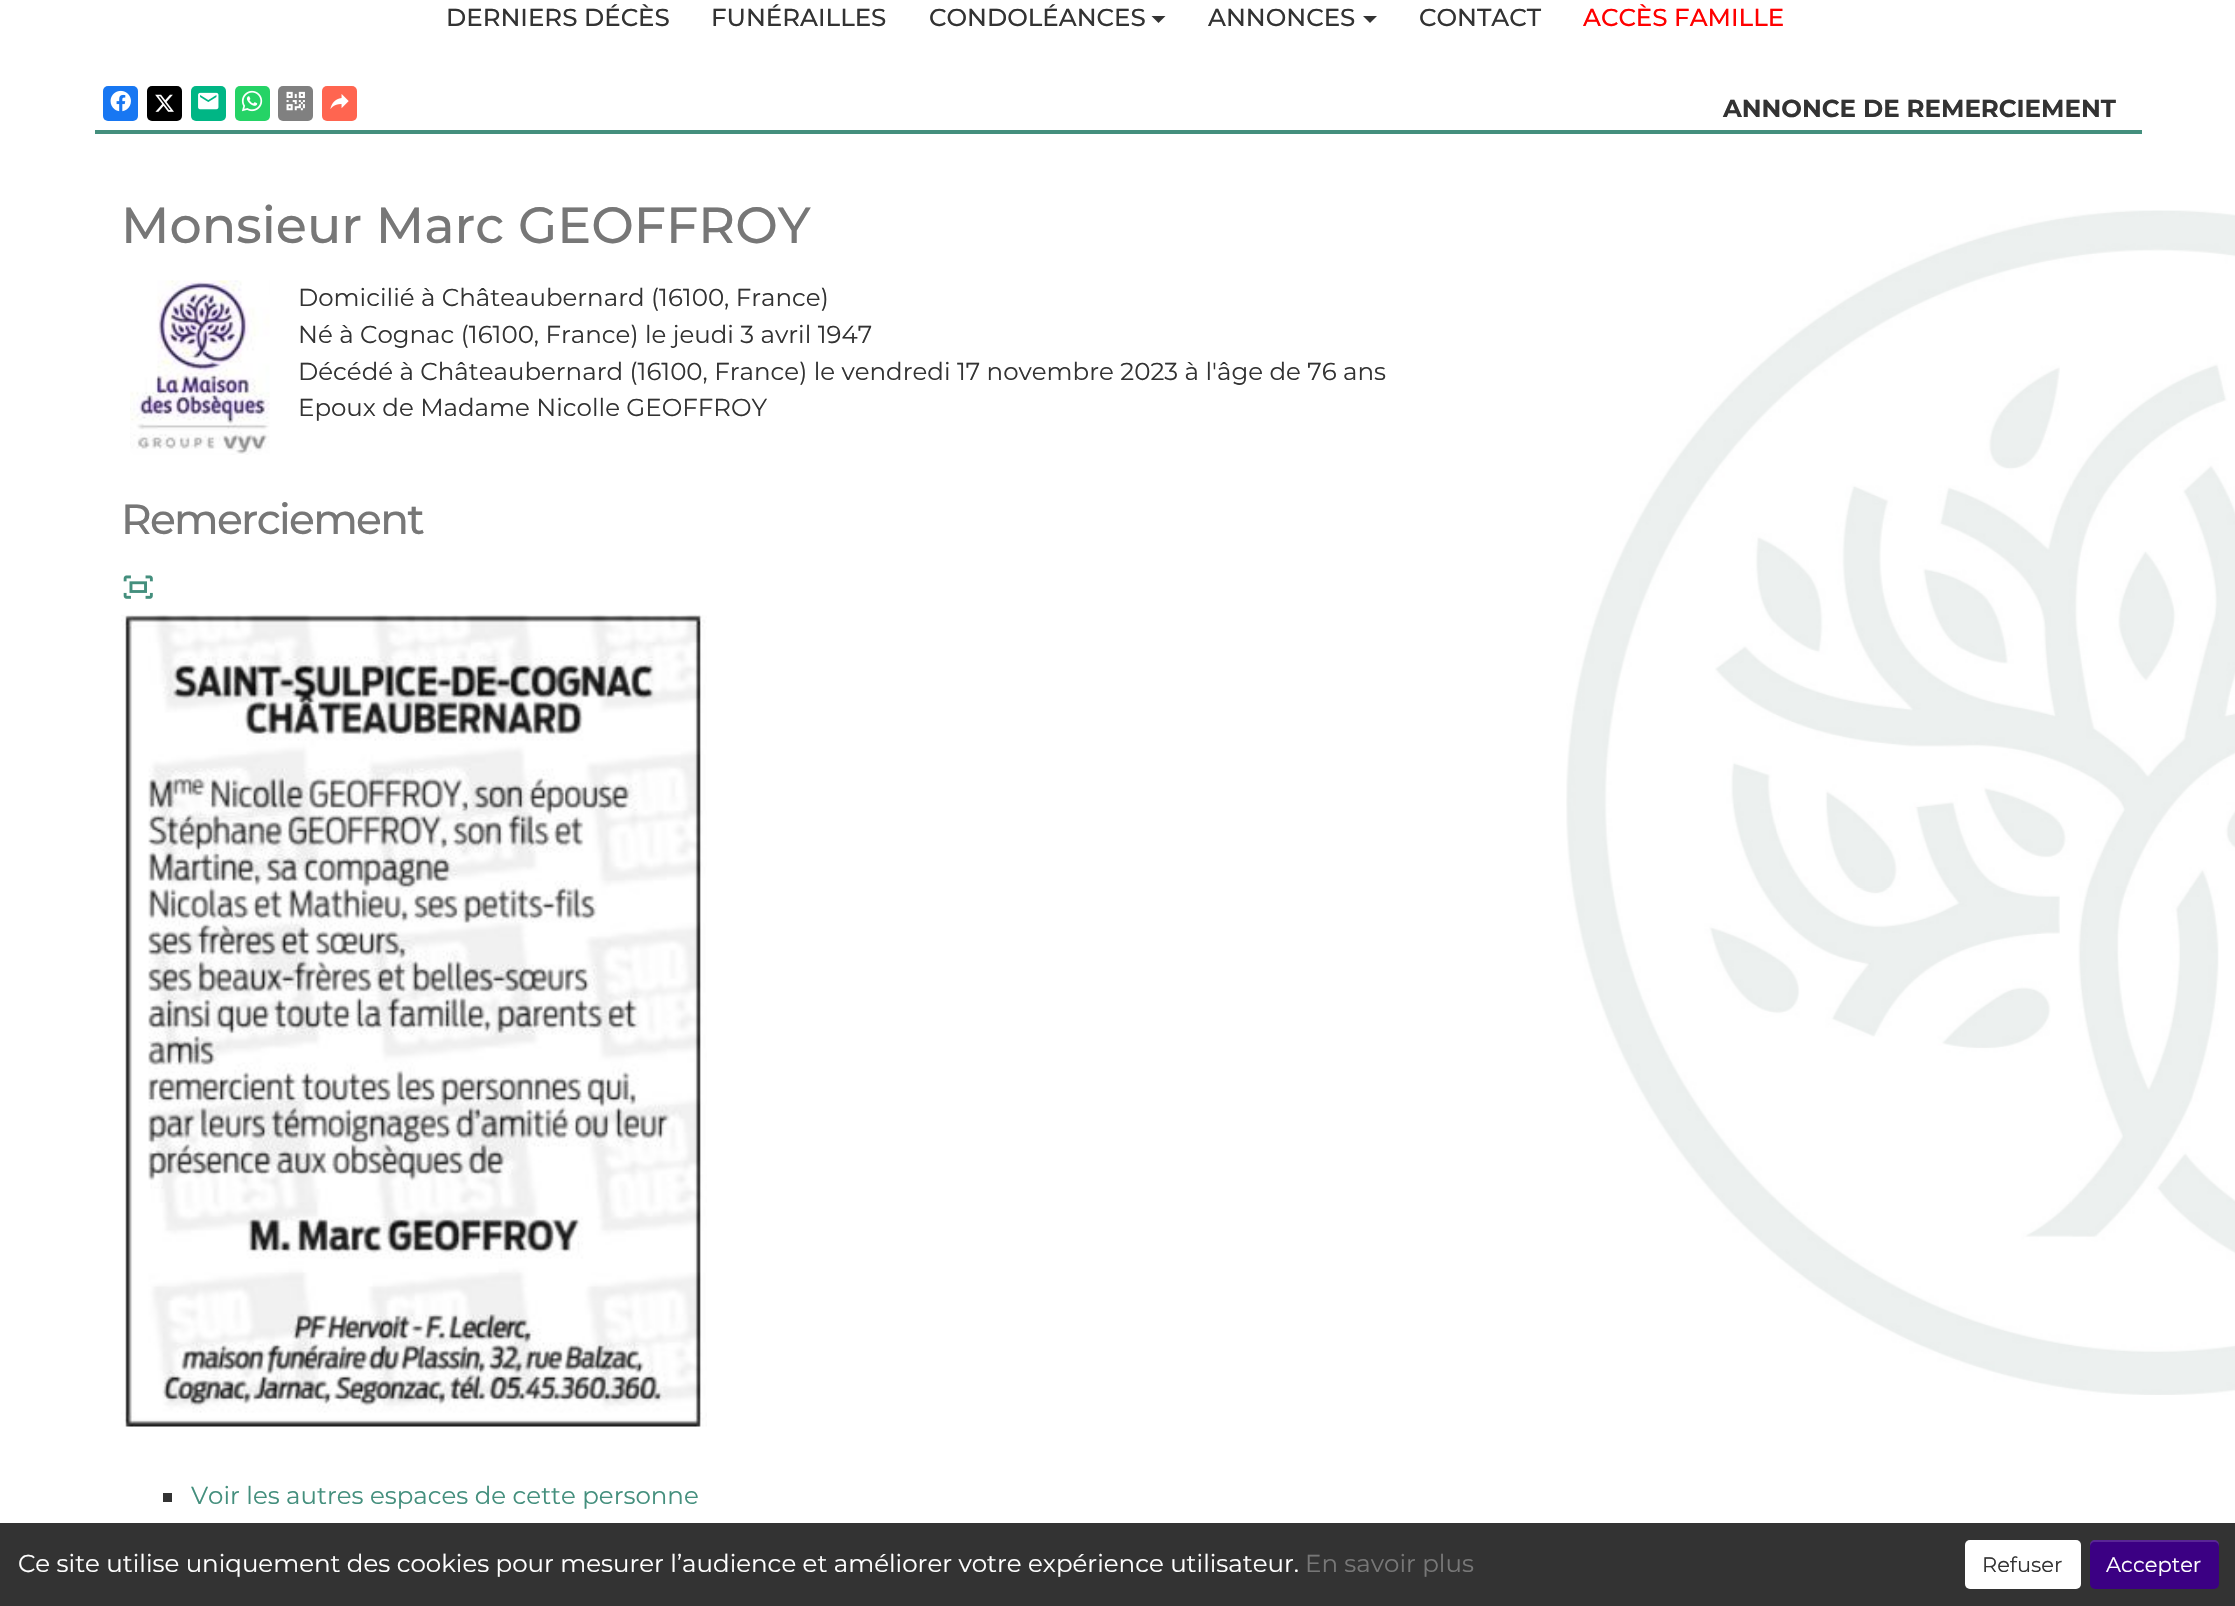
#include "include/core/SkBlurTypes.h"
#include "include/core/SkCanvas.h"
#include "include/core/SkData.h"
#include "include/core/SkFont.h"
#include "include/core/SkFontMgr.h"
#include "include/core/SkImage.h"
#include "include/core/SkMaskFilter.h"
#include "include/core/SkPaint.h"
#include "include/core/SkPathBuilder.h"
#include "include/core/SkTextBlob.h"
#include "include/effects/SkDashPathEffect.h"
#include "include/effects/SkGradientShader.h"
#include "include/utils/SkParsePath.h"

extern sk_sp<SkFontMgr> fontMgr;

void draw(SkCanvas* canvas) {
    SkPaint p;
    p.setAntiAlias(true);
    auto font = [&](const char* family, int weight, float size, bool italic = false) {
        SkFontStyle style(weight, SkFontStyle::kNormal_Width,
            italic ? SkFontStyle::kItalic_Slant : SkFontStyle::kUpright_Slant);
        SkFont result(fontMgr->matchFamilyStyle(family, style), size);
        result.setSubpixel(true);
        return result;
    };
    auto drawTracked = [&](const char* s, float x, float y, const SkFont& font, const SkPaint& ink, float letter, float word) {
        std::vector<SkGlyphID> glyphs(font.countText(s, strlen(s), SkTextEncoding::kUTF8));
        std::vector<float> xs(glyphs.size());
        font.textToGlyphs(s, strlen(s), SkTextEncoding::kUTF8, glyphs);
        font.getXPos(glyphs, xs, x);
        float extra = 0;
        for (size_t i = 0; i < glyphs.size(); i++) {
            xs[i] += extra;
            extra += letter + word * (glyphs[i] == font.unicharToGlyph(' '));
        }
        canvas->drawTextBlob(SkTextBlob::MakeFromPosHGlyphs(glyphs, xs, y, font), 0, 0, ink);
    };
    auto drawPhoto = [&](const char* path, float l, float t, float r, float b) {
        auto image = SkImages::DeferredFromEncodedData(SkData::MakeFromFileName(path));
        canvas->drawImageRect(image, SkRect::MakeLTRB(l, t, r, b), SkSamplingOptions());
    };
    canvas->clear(0xFFFFFFFF);
    drawPhoto("media/1.png", 1566, 210, 2235, 1395);
    auto font1 = font("Montserrat", 100, 24.5f);
    p.setColor(0xFF333333);
    {
        const struct { const char* s; float x, y; } items[] = {
            {"DERNIERS DÉCÈS", 446, 26},
            {"FUNÉRAILLES", 711, 26},
            {"CONDOLÉANCES", 929, 26},
        };
        for (auto [s, x, y] : items) {
            canvas->drawString(s, x, y, font1, p);
        }
    }
    canvas->drawPath(SkPathBuilder().moveTo(1151.5f, 16).lineTo(1165.5f, 16).lineTo(1158.5f, 23).close().detach(), p);
    canvas->drawString("ANNONCES", 1208, 26, font1, p);
    canvas->drawPath(SkPathBuilder().moveTo(1363, 16).lineTo(1377, 16).lineTo(1370, 23).close().detach(), p);
    canvas->drawString("CONTACT", 1419, 26, font1, p);
    p.setColor(0xFFFF0000);
    canvas->drawString("ACCÈS FAMILLE", 1583, 26, font1, p);
    p.setColor(0xFF1877F2);
    canvas->drawRoundRect(SkRect::MakeLTRB(103, 86, 138, 121), 5, 5, p);
    drawPhoto("media/2.png", 110, 90, 131, 112);
    p.setColor(0xFF000000);
    canvas->drawRoundRect(SkRect::MakeLTRB(147, 86, 182, 121), 5, 5, p);
    drawPhoto("media/3.png", 155, 94, 174, 112);
    p.setColor(0xFF00B685);
    canvas->drawRoundRect(SkRect::MakeLTRB(191, 86, 226, 121), 5, 5, p);
    drawPhoto("media/4.png", 198, 92, 219, 110);
    p.setColor(0xFF25D366);
    canvas->drawRoundRect(SkRect::MakeLTRB(235, 86, 270, 121), 5, 5, p);
    drawPhoto("media/5.png", 241, 90, 263, 112);
    p.setColor(0xFF808080);
    canvas->drawRoundRect(SkRect::MakeLTRB(278, 86, 313, 121), 5, 5, p);
    drawPhoto("media/6.png", 286, 91, 305, 111);
    p.setColor(0xFFFF6550);
    canvas->drawRoundRect(SkRect::MakeLTRB(322, 86, 357, 121), 5, 5, p);
    drawPhoto("media/7.png", 330, 94, 349, 109);
    p.setColor(0xFF448F7D);
    canvas->drawRect(SkRect::MakeLTRB(95, 130, 2142, 134), p);
    auto font2 = font("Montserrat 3", 100, 24.5f);
    p.setColor(0xFF333333);
    canvas->drawString("ANNONCE DE REMERCIEMENT", 1723, 117, font2, p);
    auto font3 = font("Montserrat", 100, 50.75f);
    p.setColor(0xFF777777);
    canvas->drawString("Monsieur Marc GEOFFROY", 121, 243, font3, p);
    drawPhoto("media/8.png", 130, 280, 270, 455);
    auto font4 = font("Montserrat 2", 100, 24.5f);
    p.setColor(0xFF333333);
    {
        const struct { const char* s; float x, y; } items[] = {
            {"Domicilié à Châteaubernard (16100, France)", 298, 306},
            {"Né à Cognac (16100, France) le jeudi 3 avril 1947", 298, 343},
            {"Décédé à Châteaubernard (16100, France) le vendredi 17 novembre 2023 à l'âge de 76 ans", 298, 380},
            {"Epoux de Madame Nicolle GEOFFROY", 298, 416},
        };
        for (auto [s, x, y] : items) {
            canvas->drawString(s, x, y, font4, p);
        }
    }
    auto font5 = font("Montserrat", 100, 42.25f);
    p.setColor(0xFF777777);
    drawTracked("Remerciement", 121, 534, font5, p, -1.75f, 0);
    drawPhoto("media/9.png", 123, 575, 153, 599);
    drawPhoto("media/10.png", 121, 614, 707, 1427);
    p.setColor(0xFF333333);
    canvas->drawRect(SkRect::MakeLTRB(163, 1493, 172, 1502), p);
    p.setColor(0xFF448F7D);
    canvas->drawString("Voir les autres espaces de cette personne", 191, 1504, font4, p);
    p.setColor(0xFF333333);
    canvas->drawRect(SkRect::MakeLTRB(0, 1523, 2235, 1606), p);
    p.setColor(0xFFFFFFFF);
    canvas->drawString("Ce site utilise uniquement des cookies pour mesurer l’audience et améliorer votre expérience utilisateur.", 18, 1572, font4, p);
    p.setColor(0xFF777777);
    canvas->drawString("En savoir plus", 1305, 1572, font4, p);
    p.setColor(0xFFFFFFFF);
    canvas->drawRoundRect(SkRect::MakeLTRB(1965, 1540, 2081, 1589), 5, 5, p);
    p.setColor(0x26FFFFFF);
    canvas->drawPath(SkPathBuilder().moveTo(1970, 1542).lineTo(2076, 1542).cubicTo(2078, 1542, 2081, 1544, 2081, 1547).lineTo(2081, 1545).cubicTo(2081, 1542, 2079, 1540, 2076, 1540).lineTo(1970, 1540).cubicTo(1967, 1540, 1965, 1542, 1965, 1545).lineTo(1965, 1547).cubicTo(1965, 1544, 1968, 1542, 1970, 1542).close().detach(), p);
    auto font6 = font("Montserrat 2", 100, 21);
    p.setColor(0xFF333333);
    canvas->drawString("Refuser", 1982, 1572, font6, p);
    p.setColor(0xFF3B0083);
    canvas->drawRoundRect(SkRect::MakeLTRB(2090, 1540, 2219, 1589), 5, 5, p);
    p.setColor(0x26FFFFFF);
    canvas->drawPath(SkPathBuilder().moveTo(2095, 1542).lineTo(2214, 1542).cubicTo(2217, 1542, 2219, 1544, 2219, 1547).lineTo(2219, 1545).cubicTo(2219, 1542, 2217, 1540, 2214, 1540).lineTo(2095, 1540).cubicTo(2092, 1540, 2090, 1542, 2090, 1545).lineTo(2090, 1547).cubicTo(2090, 1544, 2092, 1542, 2095, 1542).close().detach(), p);
    p.setColor(0xFFFFFFFF);
    canvas->drawString("Accepter", 2106, 1572, font6, p);
}
